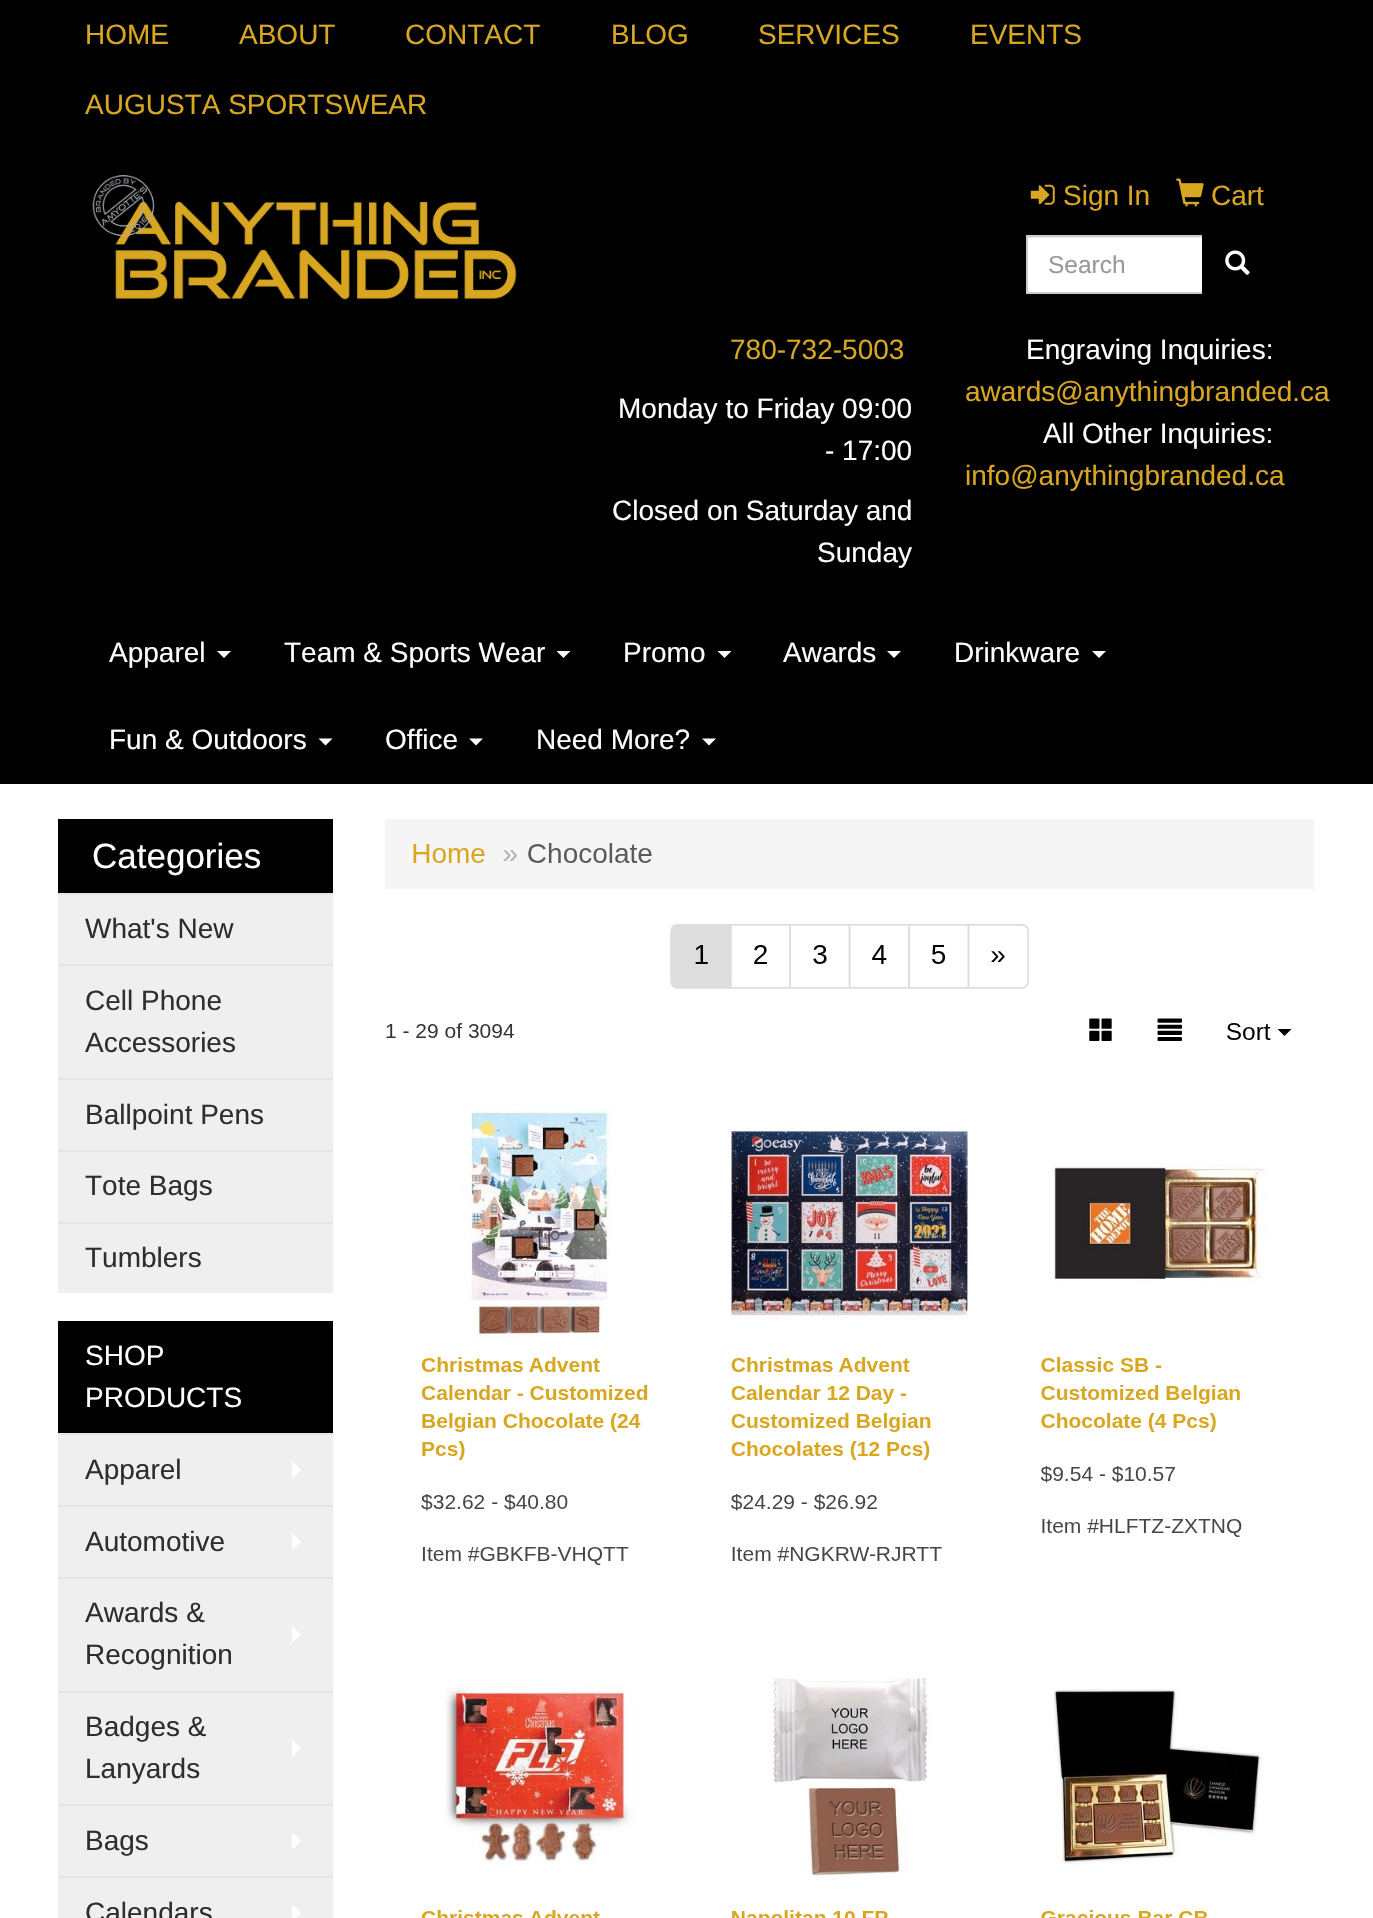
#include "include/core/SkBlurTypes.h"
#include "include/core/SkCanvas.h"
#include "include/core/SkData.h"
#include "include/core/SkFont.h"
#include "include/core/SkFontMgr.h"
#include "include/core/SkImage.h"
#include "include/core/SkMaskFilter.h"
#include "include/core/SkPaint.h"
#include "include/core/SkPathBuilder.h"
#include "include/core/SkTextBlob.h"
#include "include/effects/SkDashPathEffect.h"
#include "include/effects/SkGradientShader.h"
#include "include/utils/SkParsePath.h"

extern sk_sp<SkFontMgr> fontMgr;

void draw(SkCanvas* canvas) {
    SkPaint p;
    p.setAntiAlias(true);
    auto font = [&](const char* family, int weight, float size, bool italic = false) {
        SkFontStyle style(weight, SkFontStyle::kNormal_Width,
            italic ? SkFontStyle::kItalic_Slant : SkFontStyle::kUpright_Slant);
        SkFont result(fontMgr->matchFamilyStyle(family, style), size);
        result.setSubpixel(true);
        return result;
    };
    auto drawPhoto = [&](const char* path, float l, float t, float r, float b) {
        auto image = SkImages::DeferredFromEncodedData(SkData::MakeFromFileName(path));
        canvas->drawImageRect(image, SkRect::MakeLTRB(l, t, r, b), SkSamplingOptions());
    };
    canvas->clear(0xFF000000);
    auto font1 = font("Liberation Sans", 400, 28);
    p.setColor(0xFFD9A621);
    {
        const struct { const char* s; float x, y; } items[] = {
            {"HOME", 85, 44},
            {"ABOUT", 239, 44},
            {"CONTACT", 405, 44},
            {"BLOG", 611, 44},
            {"SERVICES", 758, 44},
            {"EVENTS", 970, 44},
            {"AUGUSTA SPORTSWEAR", 85, 114},
        };
        for (auto [s, x, y] : items) {
            canvas->drawString(s, x, y, font1, p);
        }
    }
    drawPhoto("media/1.png", 92, 175, 517, 300);
    drawPhoto("media/2.png", 1030, 184, 1055, 205);
    canvas->drawString("Sign In", 1063, 205, font1, p);
    drawPhoto("media/3.png", 1176, 178, 1204, 207);
    canvas->drawString("Cart", 1211, 205, font1, p);
    p.setColor(0xFFFFFFFF);
    canvas->drawRect(SkRect::MakeLTRB(1028, 238, 1202, 292), p);
    p.setColor(0xFFECECEC);
    canvas->drawRect(SkRect::MakeLTRB(1027, 237, 1202, 238), p);
    p.setStyle(SkPaint::kStroke_Style);
    p.setStrokeWidth(2);
    p.setColor(0xFFCCCCCC);
    canvas->drawRect(SkRect::MakeLTRB(1027, 236, 1203, 293), p);
    auto font2 = font("Liberation Sans", 400, 24.5f);
    p.setStyle(SkPaint::kFill_Style);
    p.setColor(0xFF999999);
    canvas->drawString("Search", 1048, 273, font2, p);
    p.setColor(0xFF000000);
    canvas->drawPath(SkPathBuilder().moveTo(1202, 235).lineTo(1267, 235).cubicTo(1271, 235, 1274, 238, 1274, 242).lineTo(1274, 287).cubicTo(1274, 291, 1271, 294, 1267, 294).lineTo(1202, 294).close().detach(), p);
    drawPhoto("media/4.png", 1225, 250, 1250, 275);
    p.setColor(0xFFD9A621);
    canvas->drawString("780-732-5003", 730, 359, font1, p);
    p.setColor(0xFFFFFFFF);
    {
        const struct { const char* s; float x, y; } items[] = {
            {"Monday to Friday 09:00", 618, 418},
            {"- 17:00", 825, 460},
            {"Closed on Saturday and", 612, 520},
            {"Sunday", 817, 562},
            {"Engraving Inquiries:", 1026, 359},
        };
        for (auto [s, x, y] : items) {
            canvas->drawString(s, x, y, font1, p);
        }
    }
    p.setColor(0xFFD9A621);
    canvas->drawString("awards@anythingbranded.ca", 965, 401, font1, p);
    p.setColor(0xFFFFFFFF);
    canvas->drawString("All Other Inquiries:", 1043, 443, font1, p);
    p.setColor(0xFFD9A621);
    canvas->drawString("info@anythingbranded.ca", 965, 485, font1, p);
    p.setColor(0xFFFFFFFF);
    canvas->drawString("Apparel", 109, 662, font1, p);
    canvas->drawPath(SkPathBuilder().moveTo(217, 651).lineTo(231, 651).lineTo(224, 658).close().detach(), p);
    canvas->drawString("Team & Sports Wear", 284, 662, font1, p);
    canvas->drawPath(SkPathBuilder().moveTo(556.5f, 651).lineTo(570.5f, 651).lineTo(563.5f, 658).close().detach(), p);
    canvas->drawString("Promo", 623, 662, font1, p);
    canvas->drawPath(SkPathBuilder().moveTo(717.5f, 651).lineTo(731.5f, 651).lineTo(724.5f, 658).close().detach(), p);
    canvas->drawString("Awards", 783, 662, font1, p);
    canvas->drawPath(SkPathBuilder().moveTo(887, 651).lineTo(901, 651).lineTo(894, 658).close().detach(), p);
    canvas->drawString("Drinkware", 954, 662, font1, p);
    canvas->drawPath(SkPathBuilder().moveTo(1092, 651).lineTo(1106, 651).lineTo(1099, 658).close().detach(), p);
    canvas->drawString("Fun & Outdoors", 109, 749, font1, p);
    canvas->drawPath(SkPathBuilder().moveTo(318.5f, 738.5f).lineTo(332.5f, 738.5f).lineTo(325.5f, 745.5f).close().detach(), p);
    canvas->drawString("Office", 385, 749, font1, p);
    canvas->drawPath(SkPathBuilder().moveTo(469, 738.5f).lineTo(483, 738.5f).lineTo(476, 745.5f).close().detach(), p);
    canvas->drawString("Need More?", 536, 749, font1, p);
    canvas->drawPath(SkPathBuilder().moveTo(702, 738.5f).lineTo(716, 738.5f).lineTo(709, 745.5f).close().detach(), p);
    canvas->drawRect(SkRect::MakeLTRB(0, 784, 1373, 1918), p);
    p.setColor(0xFF000000);
    canvas->drawRect(SkRect::MakeLTRB(58, 819, 333, 893), p);
    auto font3 = font("Liberation Sans", 400, 35);
    p.setColor(0xFFFFFFFF);
    canvas->drawString("Categories", 92, 868, font3, p);
    p.setColor(0xFFEFEFEF);
    canvas->drawRect(SkRect::MakeLTRB(58, 895, 333, 964), p);
    p.setColor(0xFFE5E5E5);
    canvas->drawRect(SkRect::MakeLTRB(58, 893, 333, 895), p);
    p.setColor(0xFF2E2E2E);
    canvas->drawString("What's New", 85, 938, font1, p);
    p.setColor(0xFFEFEFEF);
    canvas->drawRect(SkRect::MakeLTRB(58, 966, 333, 1078), p);
    p.setColor(0xFFE5E5E5);
    canvas->drawRect(SkRect::MakeLTRB(58, 964, 333, 966), p);
    p.setColor(0xFF2E2E2E);
    canvas->drawString("Cell Phone", 85, 1010, font1, p);
    canvas->drawString("Accessories", 85, 1052, font1, p);
    p.setColor(0xFFEFEFEF);
    canvas->drawRect(SkRect::MakeLTRB(58, 1080, 333, 1150), p);
    p.setColor(0xFFE5E5E5);
    canvas->drawRect(SkRect::MakeLTRB(58, 1078, 333, 1080), p);
    p.setColor(0xFF2E2E2E);
    canvas->drawString("Ballpoint Pens", 85, 1124, font1, p);
    p.setColor(0xFFEFEFEF);
    canvas->drawRect(SkRect::MakeLTRB(58, 1152, 333, 1222), p);
    p.setColor(0xFFE5E5E5);
    canvas->drawRect(SkRect::MakeLTRB(58, 1150, 333, 1152), p);
    p.setColor(0xFF2E2E2E);
    canvas->drawString("Tote Bags", 85, 1195, font1, p);
    p.setColor(0xFFEFEFEF);
    canvas->drawRect(SkRect::MakeLTRB(58, 1224, 333, 1293), p);
    p.setColor(0xFFE5E5E5);
    canvas->drawRect(SkRect::MakeLTRB(58, 1222, 333, 1224), p);
    p.setColor(0xFF2E2E2E);
    canvas->drawString("Tumblers", 85, 1267, font1, p);
    p.setColor(0xFF000000);
    canvas->drawRect(SkRect::MakeLTRB(58, 1321, 333, 1433), p);
    p.setColor(0xFFFFFFFF);
    canvas->drawString("SHOP", 85, 1365, font1, p);
    canvas->drawString("PRODUCTS", 85, 1407, font1, p);
    p.setColor(0xFFEFEFEF);
    canvas->drawRect(SkRect::MakeLTRB(58, 1435, 333, 1505), p);
    p.setColor(0xFFE5E5E5);
    canvas->drawRect(SkRect::MakeLTRB(58, 1433, 333, 1435), p);
    p.setColor(0xFF2E2E2E);
    canvas->drawString("Apparel", 85, 1479, font1, p);
    p.setColor(0xFFFFFFFF);
    canvas->drawPath(SkPathBuilder().moveTo(292, 1479).lineTo(292, 1461).lineTo(301, 1470).close().detach(), p);
    p.setColor(0xFFEFEFEF);
    canvas->drawRect(SkRect::MakeLTRB(58, 1507, 333, 1577), p);
    p.setColor(0xFFE5E5E5);
    canvas->drawRect(SkRect::MakeLTRB(58, 1505, 333, 1507), p);
    p.setColor(0xFF2E2E2E);
    canvas->drawString("Automotive", 85, 1551, font1, p);
    p.setColor(0xFFFFFFFF);
    canvas->drawPath(SkPathBuilder().moveTo(292, 1550.5f).lineTo(292, 1533).lineTo(301, 1542).close().detach(), p);
    p.setColor(0xFFEFEFEF);
    canvas->drawRect(SkRect::MakeLTRB(58, 1579, 333, 1691), p);
    p.setColor(0xFFE5E5E5);
    canvas->drawRect(SkRect::MakeLTRB(58, 1577, 333, 1579), p);
    p.setColor(0xFF2E2E2E);
    canvas->drawString("Awards &", 85, 1622, font1, p);
    p.setColor(0xFFFFFFFF);
    canvas->drawPath(SkPathBuilder().moveTo(292, 1643).lineTo(292, 1626).lineTo(301, 1634.5f).close().detach(), p);
    p.setColor(0xFF2E2E2E);
    canvas->drawString("Recognition", 85, 1664, font1, p);
    p.setColor(0xFFEFEFEF);
    canvas->drawRect(SkRect::MakeLTRB(58, 1693, 333, 1804), p);
    p.setColor(0xFFE5E5E5);
    canvas->drawRect(SkRect::MakeLTRB(58, 1691, 333, 1693), p);
    p.setColor(0xFF2E2E2E);
    canvas->drawString("Badges &", 85, 1736, font1, p);
    p.setColor(0xFFFFFFFF);
    canvas->drawPath(SkPathBuilder().moveTo(292, 1757).lineTo(292, 1739.5f).lineTo(301, 1748).close().detach(), p);
    p.setColor(0xFF2E2E2E);
    canvas->drawString("Lanyards", 85, 1778, font1, p);
    p.setColor(0xFFEFEFEF);
    canvas->drawRect(SkRect::MakeLTRB(58, 1806, 333, 1876), p);
    p.setColor(0xFFE5E5E5);
    canvas->drawRect(SkRect::MakeLTRB(58, 1804, 333, 1806), p);
    p.setColor(0xFF2E2E2E);
    canvas->drawString("Bags", 85, 1850, font1, p);
    p.setColor(0xFFFFFFFF);
    canvas->drawPath(SkPathBuilder().moveTo(292, 1850).lineTo(292, 1832).lineTo(301, 1841).close().detach(), p);
    p.setColor(0xFFEFEFEF);
    canvas->drawRect(SkRect::MakeLTRB(58, 1878, 333, 1918), p);
    p.setColor(0xFFE5E5E5);
    canvas->drawRect(SkRect::MakeLTRB(58, 1876, 333, 1878), p);
    p.setColor(0xFF2E2E2E);
    canvas->drawString("Calendars", 85, 1922, font1, p);
    p.setColor(0xFFFFFFFF);
    canvas->drawPath(SkPathBuilder().moveTo(292, 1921.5f).lineTo(292, 1904).lineTo(301, 1913).close().detach(), p);
    drawPhoto("media/5.png", 385, 819, 1314, 1918);
}
